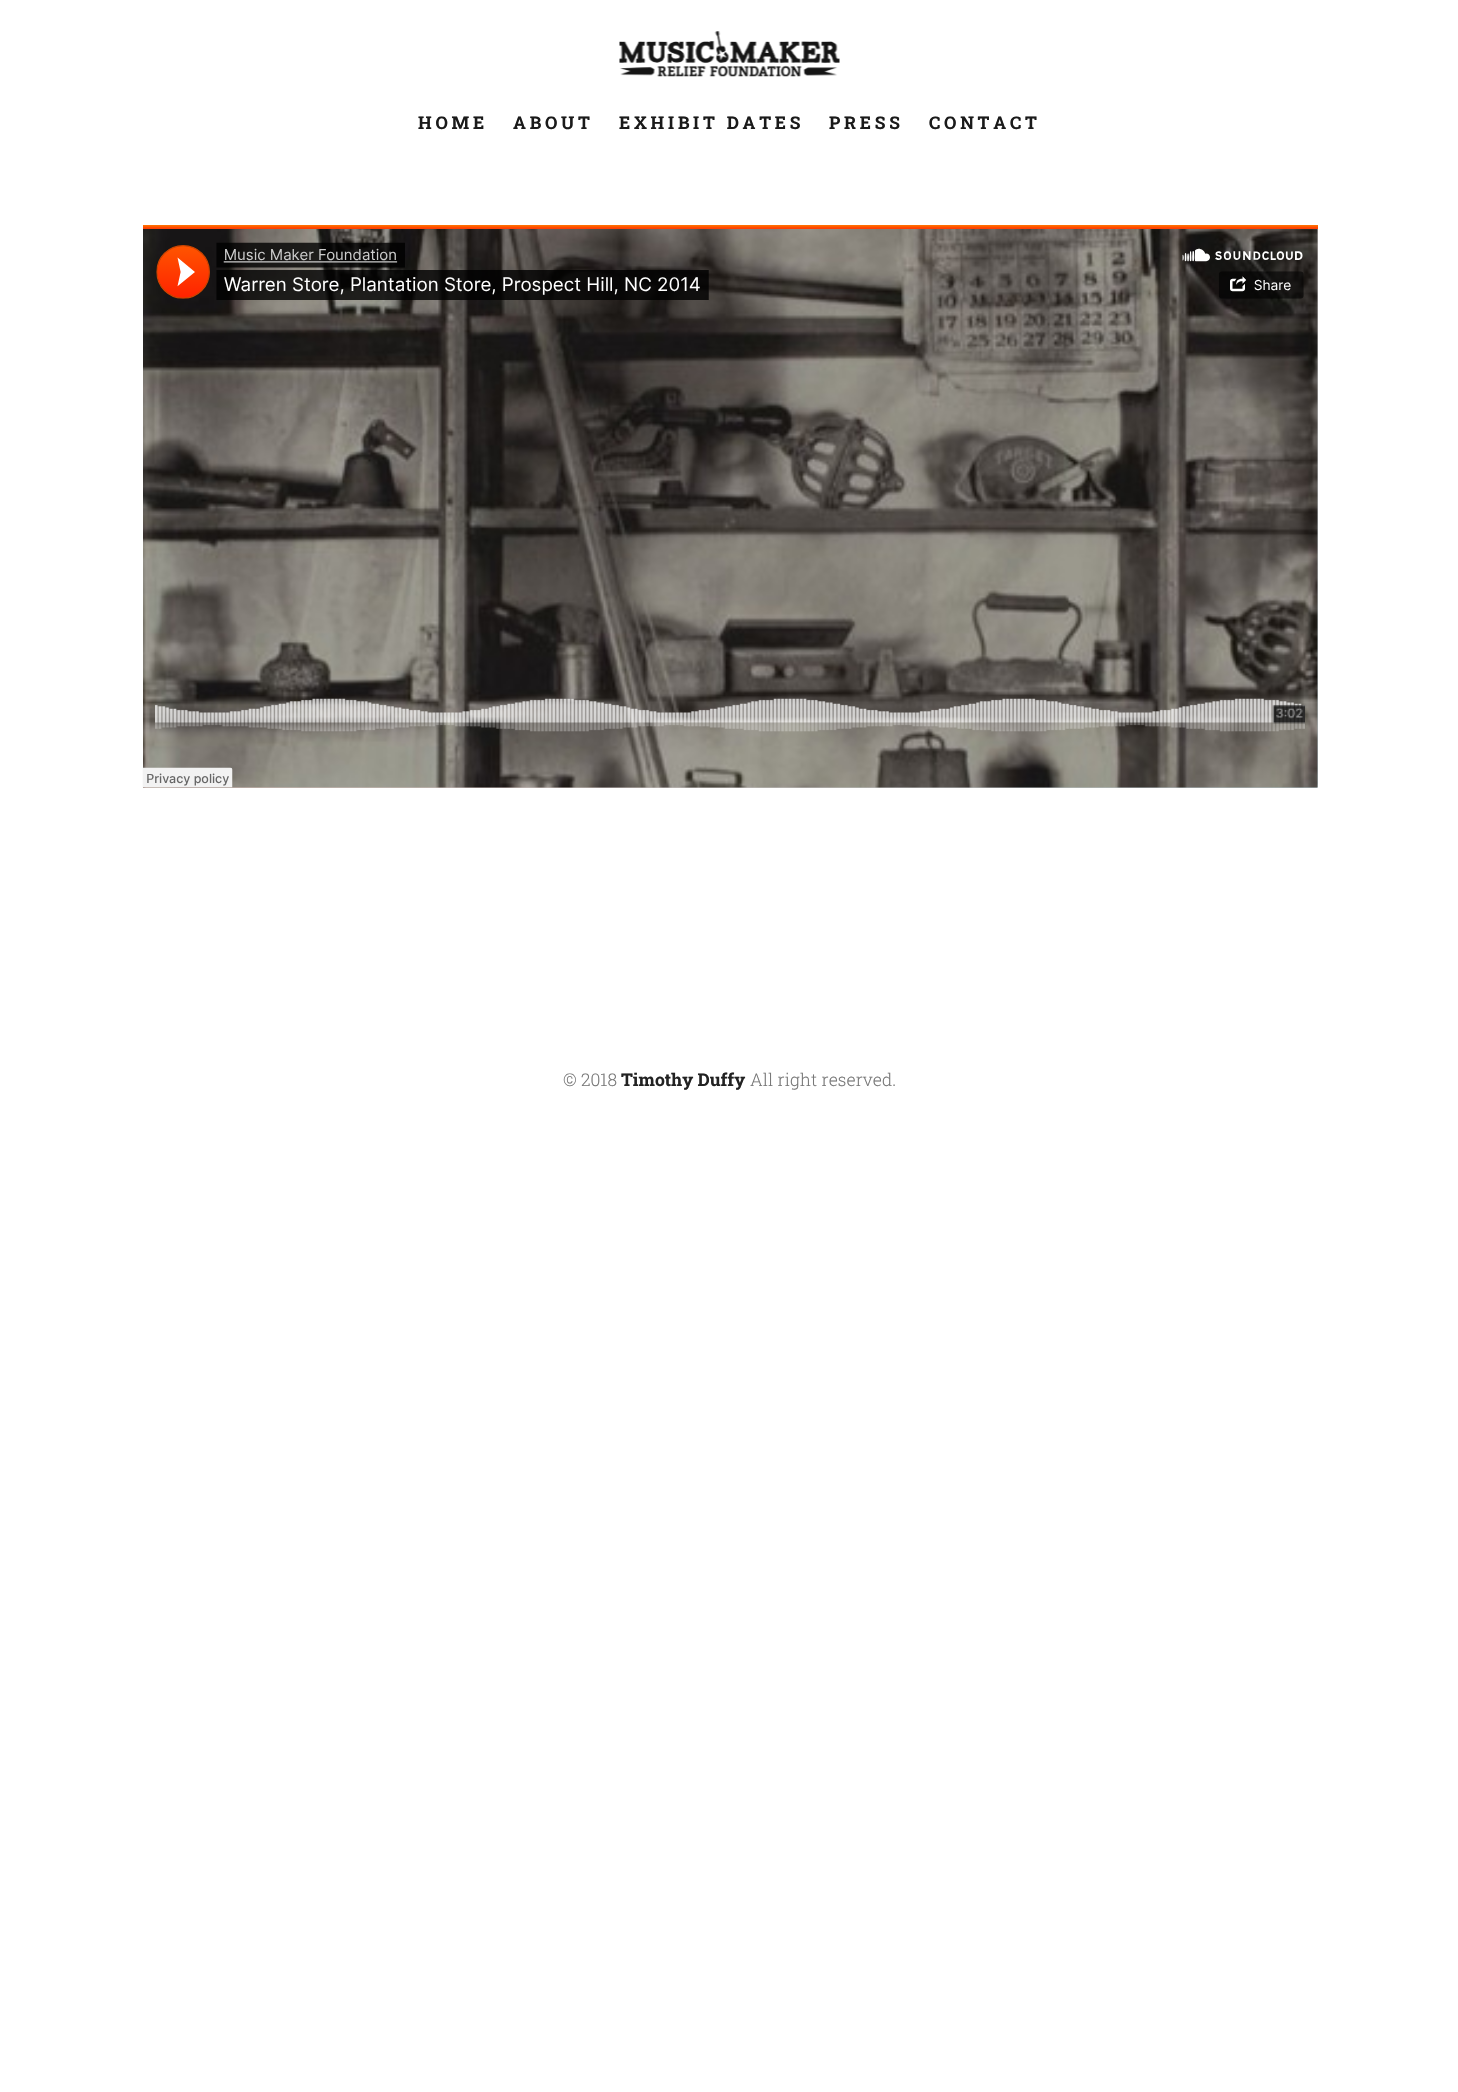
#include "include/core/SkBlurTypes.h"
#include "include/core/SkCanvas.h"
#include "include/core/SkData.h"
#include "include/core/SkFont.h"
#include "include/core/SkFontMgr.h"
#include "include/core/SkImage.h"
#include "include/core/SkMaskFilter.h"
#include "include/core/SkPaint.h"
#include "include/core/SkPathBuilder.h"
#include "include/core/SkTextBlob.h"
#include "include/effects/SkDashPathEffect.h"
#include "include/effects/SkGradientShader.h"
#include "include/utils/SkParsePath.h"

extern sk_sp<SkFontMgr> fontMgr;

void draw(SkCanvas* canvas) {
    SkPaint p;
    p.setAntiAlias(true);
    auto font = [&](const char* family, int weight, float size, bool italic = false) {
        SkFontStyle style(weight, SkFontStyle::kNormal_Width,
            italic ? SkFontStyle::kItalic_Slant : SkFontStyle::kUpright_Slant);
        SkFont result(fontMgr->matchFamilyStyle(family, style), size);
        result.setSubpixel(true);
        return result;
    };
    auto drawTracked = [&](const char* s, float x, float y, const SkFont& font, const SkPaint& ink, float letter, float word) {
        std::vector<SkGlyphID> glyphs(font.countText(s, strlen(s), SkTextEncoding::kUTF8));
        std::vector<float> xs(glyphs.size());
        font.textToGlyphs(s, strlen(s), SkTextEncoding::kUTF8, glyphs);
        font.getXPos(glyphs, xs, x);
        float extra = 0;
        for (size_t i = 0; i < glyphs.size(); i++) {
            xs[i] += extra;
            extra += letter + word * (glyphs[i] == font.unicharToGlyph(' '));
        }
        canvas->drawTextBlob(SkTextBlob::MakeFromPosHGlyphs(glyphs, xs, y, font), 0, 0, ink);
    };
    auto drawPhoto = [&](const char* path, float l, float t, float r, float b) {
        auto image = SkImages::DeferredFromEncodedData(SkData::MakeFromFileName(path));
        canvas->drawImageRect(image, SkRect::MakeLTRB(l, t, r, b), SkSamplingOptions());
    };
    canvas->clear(0xFFFFFFFF);
    drawPhoto("media/1.png", 619, 31, 840, 77);
    auto font1 = font("Roboto Slab", 700, 17.5f);
    p.setColor(0xFF1A1A1A);
    {
        const struct { const char* s; float x, y; } items[] = {
            {"HOME", 418, 129},
            {"ABOUT", 513, 129},
            {"EXHIBIT DATES", 619, 129},
            {"PRESS", 829, 129},
            {"CONTACT", 929, 129},
        };
        for (auto [s, x, y] : items) {
            drawTracked(s, x, y, font1, p, 3.75f, 0);
        }
    }
    drawPhoto("media/2.png", 142, 225, 1318, 788);
    auto font2 = font("Roboto Slab", 300, 17.5f);
    p.setColor(0xFF777777);
    canvas->drawString("© 2018", 563, 1086, font2, p);
    p.setColor(0xFF222222);
    canvas->drawString("Timothy Duffy", 621, 1086, font1, p);
    p.setColor(0xFF777777);
    canvas->drawString("All right reserved.", 750, 1086, font2, p);
}
